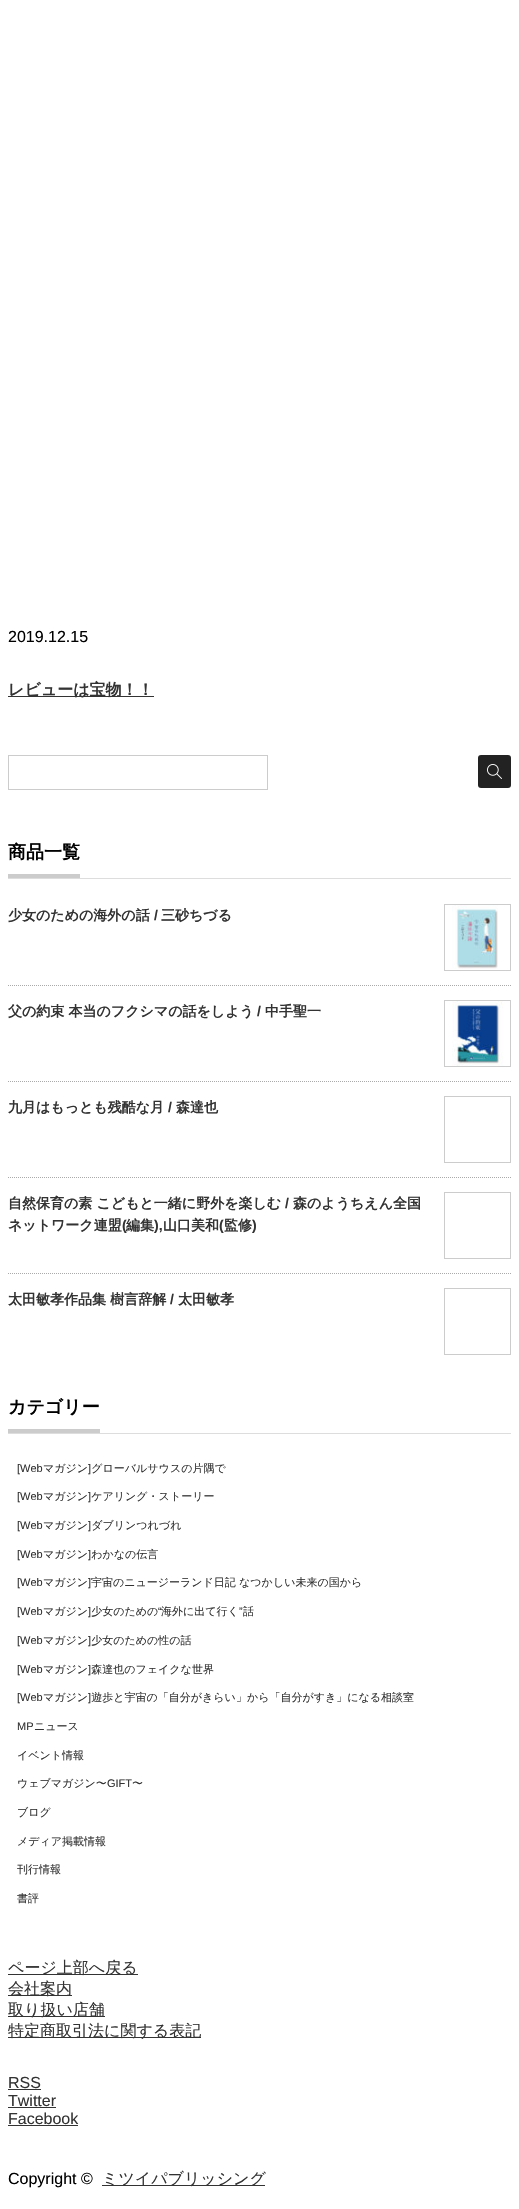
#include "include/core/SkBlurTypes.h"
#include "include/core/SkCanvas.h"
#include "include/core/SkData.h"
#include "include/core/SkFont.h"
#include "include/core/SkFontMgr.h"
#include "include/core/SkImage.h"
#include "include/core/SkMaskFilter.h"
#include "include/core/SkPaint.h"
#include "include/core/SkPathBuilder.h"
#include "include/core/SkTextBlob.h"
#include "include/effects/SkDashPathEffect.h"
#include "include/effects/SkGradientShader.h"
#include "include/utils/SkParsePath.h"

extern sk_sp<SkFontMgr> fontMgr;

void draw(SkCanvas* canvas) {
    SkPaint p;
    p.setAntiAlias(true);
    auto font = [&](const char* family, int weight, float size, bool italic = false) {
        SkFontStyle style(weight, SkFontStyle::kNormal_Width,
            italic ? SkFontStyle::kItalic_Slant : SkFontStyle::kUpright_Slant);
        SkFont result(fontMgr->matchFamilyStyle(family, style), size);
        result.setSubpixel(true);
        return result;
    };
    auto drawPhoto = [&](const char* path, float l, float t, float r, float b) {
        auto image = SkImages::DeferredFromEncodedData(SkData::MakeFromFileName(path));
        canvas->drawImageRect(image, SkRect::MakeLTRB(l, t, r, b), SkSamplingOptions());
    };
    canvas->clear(0xFFFFFFFF);
    auto font1 = font("Liberation Sans", 400, 16);
    p.setColor(0xFF000000);
    canvas->drawString("2019.12.15", 8, 642, font1, p);
    p.setColor(0xFF333333);
    canvas->drawRect(SkRect::MakeLTRB(8, 696, 154, 697), p);
    auto font2 = font("WenQuanYi Zen Hei", 700, 16);
    canvas->drawString("レビューは宝物！！", 8, 695, font2, p);
    p.setStyle(SkPaint::kStroke_Style);
    p.setStrokeWidth(1);
    p.setColor(0xFFCCCCCC);
    canvas->drawRect(SkRect::MakeLTRB(8.5f, 755.5f, 267.5f, 789.5f), p);
    p.setStyle(SkPaint::kFill_Style);
    p.setColor(0xFF222222);
    canvas->drawRoundRect(SkRect::MakeLTRB(478, 755, 511, 788), 3, 3, p);
    drawPhoto("media/1.png", 487, 764, 502, 779);
    p.setColor(0xFFDDDDDD);
    canvas->drawRect(SkRect::MakeLTRB(8, 878, 511, 879), p);
    p.setColor(0xFFCCCCCC);
    canvas->drawRect(SkRect::MakeLTRB(8, 874, 80, 878), p);
    auto font3 = font("WenQuanYi Zen Hei", 700, 18);
    p.setColor(0xFF000000);
    canvas->drawString("商品一覧", 8, 858, font3, p);
    p.setStyle(SkPaint::kStroke_Style);
    p.setColor(0xFFAAAAAA);
    p.setPathEffect(SkDashPathEffect::Make({{1, 1}}, 0));
    canvas->drawPath(SkPathBuilder().moveTo(8, 985.5f).lineTo(511, 985.5f).detach(), p);
    p.setPathEffect(nullptr);
    auto font4 = font("WenQuanYi Zen Hei", 700, 14);
    p.setStyle(SkPaint::kFill_Style);
    p.setColor(0xFF333333);
    canvas->drawString("少女のための海外の話", 8, 920, font4, p);
    auto font5 = font("Liberation Sans", 700, 14);
    canvas->drawString("/", 154, 920, font5, p);
    canvas->drawString("三砂ちづる", 161, 920, font4, p);
    p.setStyle(SkPaint::kStroke_Style);
    p.setColor(0xFFCCCCCC);
    canvas->drawRect(SkRect::MakeLTRB(444.5f, 904.5f, 510.5f, 970.5f), p);
    drawPhoto("media/2.png", 452, 905, 498, 969);
    p.setColor(0xFFAAAAAA);
    p.setPathEffect(SkDashPathEffect::Make({{1, 1}}, 0));
    canvas->drawPath(SkPathBuilder().moveTo(8, 1081.5f).lineTo(511, 1081.5f).detach(), p);
    p.setPathEffect(nullptr);
    p.setStyle(SkPaint::kFill_Style);
    p.setColor(0xFF333333);
    canvas->drawString("父の約束 本当のフクシマの話をしよう", 8, 1016, font4, p);
    canvas->drawString("/", 257, 1016, font5, p);
    canvas->drawString("中手聖一", 265, 1016, font4, p);
    p.setStyle(SkPaint::kStroke_Style);
    p.setColor(0xFFCCCCCC);
    canvas->drawRect(SkRect::MakeLTRB(444.5f, 1000.5f, 510.5f, 1066.5f), p);
    drawPhoto("media/3.png", 452, 1001, 503, 1066);
    p.setColor(0xFFAAAAAA);
    p.setPathEffect(SkDashPathEffect::Make({{1, 1}}, 0));
    canvas->drawPath(SkPathBuilder().moveTo(8, 1177.5f).lineTo(511, 1177.5f).detach(), p);
    p.setPathEffect(nullptr);
    p.setStyle(SkPaint::kFill_Style);
    p.setColor(0xFF333333);
    canvas->drawString("九月はもっとも残酷な月", 8, 1112, font4, p);
    canvas->drawString("/", 168, 1112, font5, p);
    canvas->drawString("森達也", 176, 1112, font4, p);
    p.setStyle(SkPaint::kStroke_Style);
    p.setColor(0xFFCCCCCC);
    canvas->drawRect(SkRect::MakeLTRB(444.5f, 1096.5f, 510.5f, 1162.5f), p);
    p.setColor(0xFFAAAAAA);
    p.setPathEffect(SkDashPathEffect::Make({{1, 1}}, 0));
    canvas->drawPath(SkPathBuilder().moveTo(8, 1273.5f).lineTo(511, 1273.5f).detach(), p);
    p.setPathEffect(nullptr);
    p.setStyle(SkPaint::kFill_Style);
    p.setColor(0xFF333333);
    canvas->drawString("自然保育の素 こどもと一緒に野外を楽しむ", 8, 1208, font4, p);
    canvas->drawString("/", 285, 1208, font5, p);
    canvas->drawString("森のようちえん全国", 293, 1208, font4, p);
    canvas->drawString("ネットワーク連盟", 8, 1230, font4, p);
    canvas->drawString("(", 122, 1230, font5, p);
    canvas->drawString("編集", 126, 1230, font4, p);
    canvas->drawString("),", 154, 1230, font5, p);
    canvas->drawString("山口美和", 163, 1230, font4, p);
    canvas->drawString("(", 219, 1230, font5, p);
    canvas->drawString("監修", 224, 1230, font4, p);
    canvas->drawString(")", 252, 1230, font5, p);
    p.setStyle(SkPaint::kStroke_Style);
    p.setColor(0xFFCCCCCC);
    canvas->drawRect(SkRect::MakeLTRB(444.5f, 1192.5f, 510.5f, 1258.5f), p);
    p.setStyle(SkPaint::kFill_Style);
    p.setColor(0xFF333333);
    canvas->drawString("太田敏孝作品集 樹言辞解", 8, 1304, font4, p);
    canvas->drawString("/", 170, 1304, font5, p);
    canvas->drawString("太田敏孝", 178, 1304, font4, p);
    p.setStyle(SkPaint::kStroke_Style);
    p.setColor(0xFFCCCCCC);
    canvas->drawRect(SkRect::MakeLTRB(444.5f, 1288.5f, 510.5f, 1354.5f), p);
    p.setStyle(SkPaint::kFill_Style);
    p.setColor(0xFFDDDDDD);
    canvas->drawRect(SkRect::MakeLTRB(8, 1433, 511, 1434), p);
    p.setColor(0xFFCCCCCC);
    canvas->drawRect(SkRect::MakeLTRB(8, 1429, 100, 1433), p);
    p.setColor(0xFF000000);
    canvas->drawString("カテゴリー", 8, 1413, font3, p);
    auto font6 = font("Liberation Sans", 400, 11);
    p.setColor(0xFF333333);
    canvas->drawString("[Web", 17, 1472, font6, p);
    auto font7 = font("WenQuanYi Zen Hei", 500, 11);
    canvas->drawString("マガジン グローバルサウスの片隅で", 43, 1472, font7, p);
    canvas->drawString("]", 88, 1472, font6, p);
    canvas->drawString("[Web", 17, 1500, font6, p);
    canvas->drawString("マガジン ケアリング・ストーリー", 43, 1500, font7, p);
    canvas->drawString("]", 88, 1500, font6, p);
    canvas->drawString("[Web", 17, 1529, font6, p);
    canvas->drawString("マガジン ダブリンつれづれ", 43, 1529, font7, p);
    canvas->drawString("]", 88, 1529, font6, p);
    canvas->drawString("[Web", 17, 1558, font6, p);
    canvas->drawString("マガジン わかなの伝言", 43, 1558, font7, p);
    canvas->drawString("]", 88, 1558, font6, p);
    canvas->drawString("[Web", 17, 1586, font6, p);
    canvas->drawString("マガジン", 43, 1586, font7, p);
    canvas->drawString("]", 88, 1586, font6, p);
    canvas->drawString("宇宙のニュージーランド日記 なつかしい未来の国から", 91, 1586, font7, p);
    canvas->drawString("[Web", 17, 1615, font6, p);
    canvas->drawString("マガジン 少女のための", 43, 1615, font7, p);
    canvas->drawString("“", 158, 1615, font6, p);
    canvas->drawString("海外に出て行く", 161, 1615, font7, p);
    canvas->drawString("話", 243, 1615, font7, p);
    {
        const struct { const char* s; float x, y; } items[] = {
            {"]", 88, 1615},
            {"”", 239, 1615},
            {"[Web", 17, 1644},
        };
        for (auto [s, x, y] : items) {
            canvas->drawString(s, x, y, font6, p);
        }
    }
    canvas->drawString("マガジン 少女のための性の話", 43, 1644, font7, p);
    canvas->drawString("]", 88, 1644, font6, p);
    canvas->drawString("[Web", 17, 1673, font6, p);
    canvas->drawString("マガジン 森達也のフェイクな世界", 43, 1673, font7, p);
    canvas->drawString("]", 88, 1673, font6, p);
    canvas->drawString("[Web", 17, 1701, font6, p);
    canvas->drawString("マガジン 遊歩と宇宙の「自分がきらい」から「自分がすき」になる相談室", 43, 1701, font7, p);
    canvas->drawString("]", 88, 1701, font6, p);
    canvas->drawString("MP", 17, 1730, font6, p);
    {
        const struct { const char* s; float x, y; } items[] = {
            {"ニュース", 34, 1730},
            {"イベント情報", 17, 1759},
            {"ウェブマガジン〜", 17, 1787},
        };
        for (auto [s, x, y] : items) {
            canvas->drawString(s, x, y, font7, p);
        }
    }
    canvas->drawString("GIFT", 107, 1787, font6, p);
    {
        const struct { const char* s; float x, y; } items[] = {
            {"〜", 132, 1787},
            {"ブログ", 17, 1816},
            {"メディア掲載情報", 17, 1845},
            {"刊行情報", 17, 1873},
            {"書評", 17, 1902},
        };
        for (auto [s, x, y] : items) {
            canvas->drawString(s, x, y, font7, p);
        }
    }
    canvas->drawRect(SkRect::MakeLTRB(8, 1974, 138, 1975), p);
    auto font8 = font("WenQuanYi Zen Hei", 500, 16);
    canvas->drawString("ページ上部へ戻る", 8, 1973, font8, p);
    canvas->drawRect(SkRect::MakeLTRB(8, 1995, 72, 1996), p);
    canvas->drawString("会社案内", 8, 1994, font8, p);
    canvas->drawRect(SkRect::MakeLTRB(8, 2016, 105, 2017), p);
    canvas->drawString("取り扱い店舗", 8, 2015, font8, p);
    canvas->drawRect(SkRect::MakeLTRB(8, 2037, 201, 2038), p);
    canvas->drawString("特定商取引法に関する表記", 8, 2036, font8, p);
    canvas->drawString("RSS", 8, 2088, font1, p);
    canvas->drawRect(SkRect::MakeLTRB(8, 2089, 41, 2090), p);
    canvas->drawString("Twitter", 8, 2106, font1, p);
    canvas->drawRect(SkRect::MakeLTRB(8, 2107, 56, 2108), p);
    canvas->drawString("Facebook", 8, 2124, font1, p);
    canvas->drawRect(SkRect::MakeLTRB(8, 2125, 78, 2126), p);
    p.setColor(0xFF000000);
    canvas->drawString("Copyright ©", 8, 2184, font1, p);
    p.setColor(0xFF333333);
    canvas->drawRect(SkRect::MakeLTRB(102, 2185, 265, 2186), p);
    canvas->drawString("ミツイパブリッシング", 102, 2184, font8, p);
}
